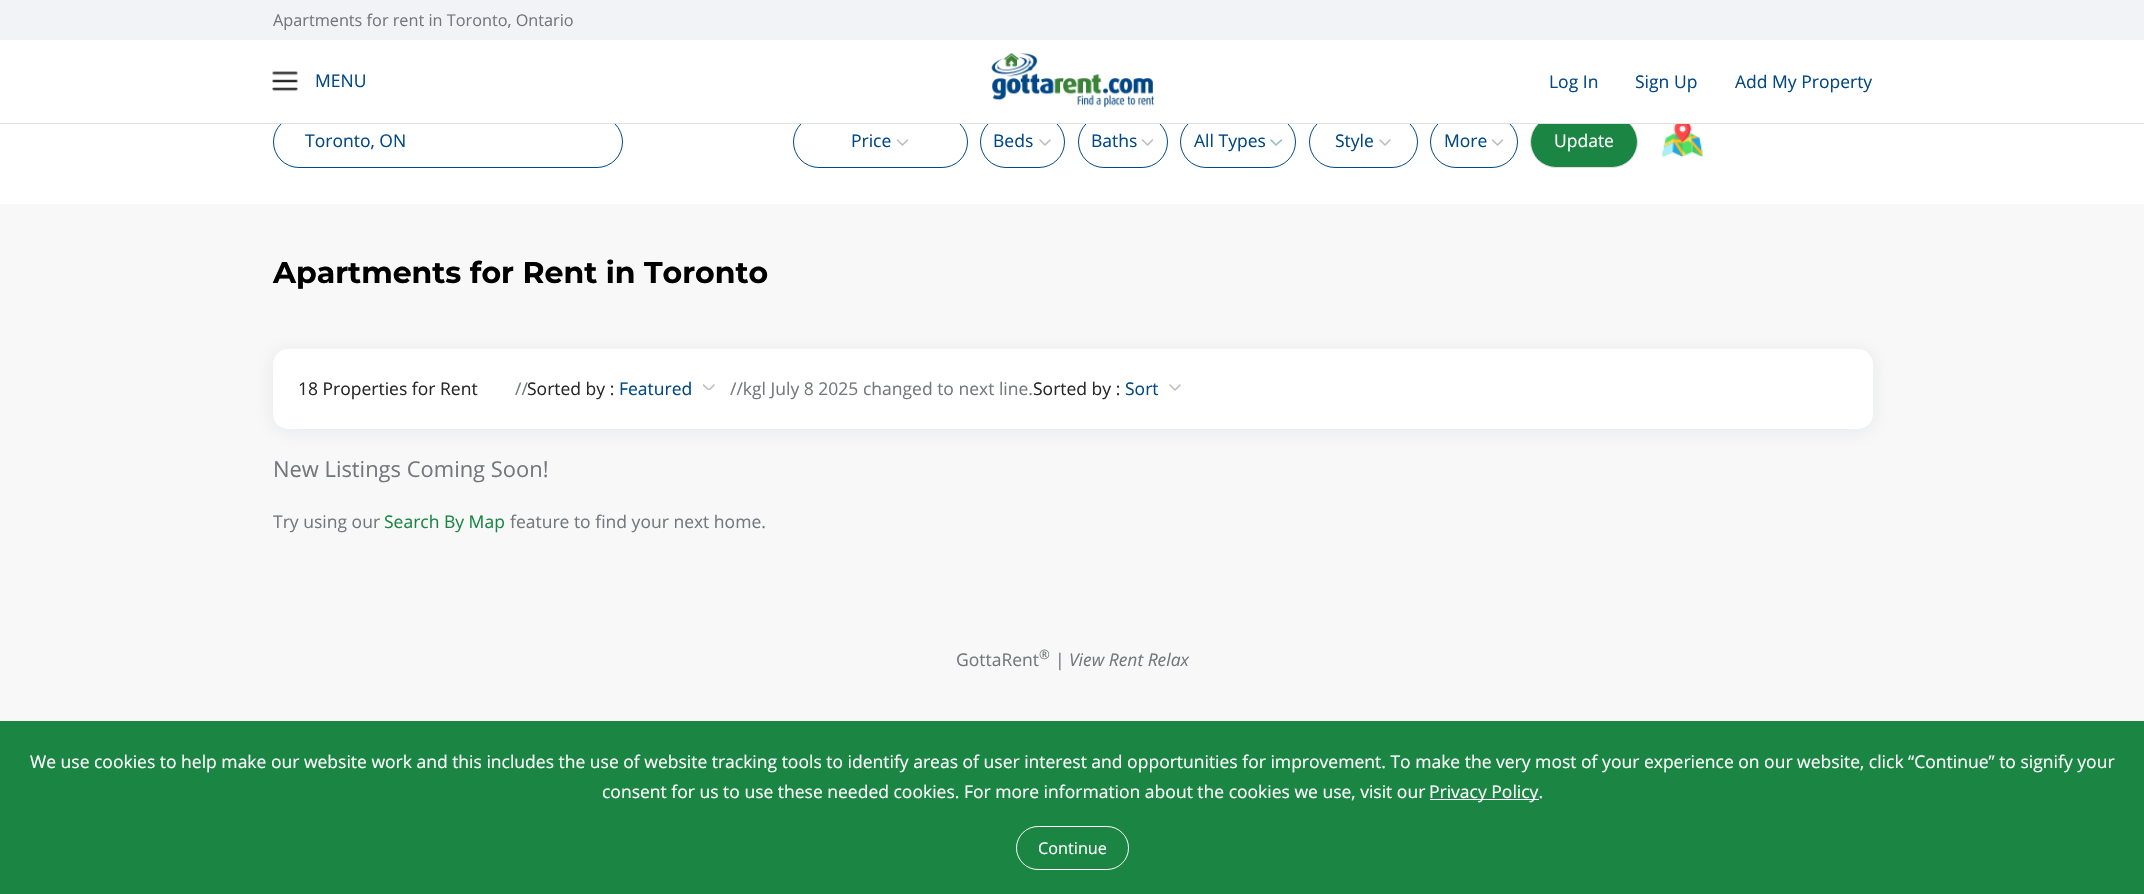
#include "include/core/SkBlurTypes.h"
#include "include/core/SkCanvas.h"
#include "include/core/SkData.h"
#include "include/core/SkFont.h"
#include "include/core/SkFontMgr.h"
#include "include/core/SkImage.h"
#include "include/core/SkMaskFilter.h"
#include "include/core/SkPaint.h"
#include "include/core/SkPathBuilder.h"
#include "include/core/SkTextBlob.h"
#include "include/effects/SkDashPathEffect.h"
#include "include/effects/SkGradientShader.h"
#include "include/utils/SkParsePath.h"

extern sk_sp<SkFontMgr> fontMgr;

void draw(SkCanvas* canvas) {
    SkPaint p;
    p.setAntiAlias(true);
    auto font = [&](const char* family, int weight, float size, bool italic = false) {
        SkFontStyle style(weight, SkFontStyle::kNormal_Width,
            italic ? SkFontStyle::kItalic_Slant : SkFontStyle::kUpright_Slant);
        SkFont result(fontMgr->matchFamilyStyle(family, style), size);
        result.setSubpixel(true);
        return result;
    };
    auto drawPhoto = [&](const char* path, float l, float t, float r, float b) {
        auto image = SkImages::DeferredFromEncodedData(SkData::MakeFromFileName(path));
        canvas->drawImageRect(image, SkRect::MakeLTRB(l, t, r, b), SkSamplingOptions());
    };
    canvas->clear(0xFFF8F8F8);
    p.setColor(0xFFFFFFFF);
    canvas->drawRect(SkRect::MakeLTRB(0, 124, 2144, 204), p);
    p.setStyle(SkPaint::kStroke_Style);
    p.setStrokeWidth(1);
    p.setColor(0xFF004886);
    canvas->drawRoundRect(SkRect::MakeLTRB(273.5f, 116.5f, 622.5f, 167.5f), 25.5f, 25.5f, p);
    canvas->drawRoundRect(SkRect::MakeLTRB(793.5f, 116.5f, 967.5f, 167.5f), 25.5f, 25.5f, p);
    canvas->drawRoundRect(SkRect::MakeLTRB(980.5f, 116.5f, 1064.5f, 167.5f), 25.5f, 25.5f, p);
    canvas->drawRoundRect(SkRect::MakeLTRB(1078.5f, 116.5f, 1167.5f, 167.5f), 25.5f, 25.5f, p);
    canvas->drawRoundRect(SkRect::MakeLTRB(1180.5f, 116.5f, 1295.5f, 167.5f), 25.5f, 25.5f, p);
    canvas->drawRoundRect(SkRect::MakeLTRB(1309.5f, 116.5f, 1417.5f, 167.5f), 25.5f, 25.5f, p);
    canvas->drawRoundRect(SkRect::MakeLTRB(1430.5f, 116.5f, 1517.5f, 167.5f), 25.5f, 25.5f, p);
    p.setStyle(SkPaint::kFill_Style);
    p.setColor(0xFF1B8644);
    canvas->drawRoundRect(SkRect::MakeLTRB(1530.5f, 116.5f, 1637.5f, 167.5f), 25.5f, 25.5f, p);
    p.setStyle(SkPaint::kStroke_Style);
    p.setColor(0xFFE0E0E0);
    canvas->drawRoundRect(SkRect::MakeLTRB(1530.5f, 116.5f, 1637.5f, 167.5f), 25.5f, 25.5f, p);
    p.setStyle(SkPaint::kFill_Style);
    {
        const struct { float l, t, r, b; SkColor color; } items[] = {
            {0, 40, 2144, 123, 0xFFFFFFFF},
            {0, 123, 2144, 124, 0xFFE0E0E0},
            {0, 0, 2144, 40, 0xFFF1F3F6},
        };
        for (auto [l, t, r, b, color] : items) {
            p.setColor(color);
            canvas->drawRect(SkRect::MakeLTRB(l, t, r, b), p);
        }
    }
    auto font1 = font("Open Sans", 400, 16.25f);
    p.setColor(0xFF74777C);
    canvas->drawString("Apartments for rent in Toronto, Ontario", 273, 26, font1, p);
    drawPhoto("media/1.png", 272, 71, 298, 92);
    auto font2 = font("Open Sans", 400, 17.5f);
    p.setColor(0xFF004886);
    canvas->drawString("MENU", 315, 87, font2, p);
    drawPhoto("media/2.png", 991, 53, 1154, 108);
    {
        const struct { const char* s; float x, y; } items[] = {
            {"Log In", 1549, 88},
            {"Sign Up", 1635, 88},
            {"Add My Property", 1735, 88},
            {"Toronto, ON", 305, 147},
            {"Price", 851, 147},
        };
        for (auto [s, x, y] : items) {
            canvas->drawString(s, x, y, font2, p);
        }
    }
    p.setStyle(SkPaint::kStroke_Style);
    p.setStrokeWidth(1.6f);
    p.setStrokeCap(SkPaint::kRound_Cap);
    p.setStrokeJoin(SkPaint::kRound_Join);
    p.setColor(0xFFBDBDBD);
    canvas->drawPath(SkPathBuilder().moveTo(907.5f, 140).lineTo(902.5f, 145).lineTo(897.5f, 140).detach(), p);
    p.setStyle(SkPaint::kFill_Style);
    p.setColor(0xFF004886);
    canvas->drawString("Beds", 993, 147, font2, p);
    p.setStyle(SkPaint::kStroke_Style);
    p.setColor(0xFFBDBDBD);
    canvas->drawPath(SkPathBuilder().moveTo(1050, 140).lineTo(1045, 145).lineTo(1040, 140).detach(), p);
    p.setStyle(SkPaint::kFill_Style);
    p.setColor(0xFF004886);
    canvas->drawString("Baths", 1091, 147, font2, p);
    p.setStyle(SkPaint::kStroke_Style);
    p.setColor(0xFFBDBDBD);
    canvas->drawPath(SkPathBuilder().moveTo(1152.5f, 140).lineTo(1147.5f, 145).lineTo(1142.5f, 140).detach(), p);
    p.setStyle(SkPaint::kFill_Style);
    p.setColor(0xFF004886);
    canvas->drawString("All Types", 1194, 147, font2, p);
    p.setStyle(SkPaint::kStroke_Style);
    p.setColor(0xFF8FC1BC);
    canvas->drawPath(SkPathBuilder().moveTo(1281.5f, 140).lineTo(1276, 145).lineTo(1271, 140).detach(), p);
    p.setStyle(SkPaint::kFill_Style);
    p.setColor(0xFF004886);
    canvas->drawString("Style", 1335, 147, font2, p);
    p.setStyle(SkPaint::kStroke_Style);
    p.setColor(0xFFBDBDBD);
    canvas->drawPath(SkPathBuilder().moveTo(1390, 140).lineTo(1385, 145).lineTo(1380, 140).detach(), p);
    p.setStyle(SkPaint::kFill_Style);
    p.setColor(0xFF004886);
    canvas->drawString("More", 1444, 147, font2, p);
    p.setStyle(SkPaint::kStroke_Style);
    p.setColor(0xFFBDBDBD);
    canvas->drawPath(SkPathBuilder().moveTo(1502.5f, 140).lineTo(1497.5f, 145).lineTo(1492.5f, 140).detach(), p);
    p.setStyle(SkPaint::kFill_Style);
    p.setColor(0xFFFFFFFF);
    canvas->drawString("Update", 1554, 147, font2, p);
    drawPhoto("media/3.png", 1662, 124, 1703, 158);
    auto font3 = font("Montserrat", 700, 30);
    p.setColor(0xFF000000);
    canvas->drawString("Apartments for Rent in Toronto", 273, 283, font3, p);
    p.setColor(0x14092C4C);
    p.setMaskFilter(SkMaskFilter::MakeBlur(kNormal_SkBlurStyle, 9.5f));
    canvas->drawRoundRect(SkRect::MakeLTRB(273, 351, 1873, 431), 15, 15, p);
    p.setMaskFilter(nullptr);
    p.setColor(0xFFFFFFFF);
    canvas->drawRoundRect(SkRect::MakeLTRB(273, 349, 1873, 429), 15, 15, p);
    p.setColor(0xFF282828);
    canvas->drawString("18 Properties for Rent", 298, 395, font2, p);
    p.setColor(0xFF74777C);
    canvas->drawString("//", 515, 395, font2, p);
    p.setColor(0xFF282828);
    canvas->drawString("Sorted by :", 527, 395, font2, p);
    p.setColor(0xFF004886);
    canvas->drawString("Featured", 619, 395, font2, p);
    canvas->save();
    canvas->clipRect(SkRect::MakeLTRB(703, 384, 715, 390));
    p.setStyle(SkPaint::kStroke_Style);
    p.setColor(0xFFBDBDBD);
    canvas->drawPath(SkPathBuilder().moveTo(714, 385).lineTo(709, 390).lineTo(703.5f, 385).detach(), p);
    canvas->restore();
    p.setStyle(SkPaint::kFill_Style);
    p.setColor(0xFF74777C);
    canvas->drawString("//kgl July 8 2025 changed to next line.", 730, 395, font2, p);
    p.setColor(0xFF282828);
    canvas->drawString("Sorted by :", 1033, 395, font2, p);
    p.setColor(0xFF004886);
    canvas->drawString("Sort", 1125, 395, font2, p);
    p.setStyle(SkPaint::kStroke_Style);
    p.setColor(0xFFBDBDBD);
    canvas->drawPath(SkPathBuilder().moveTo(1180, 385).lineTo(1175, 390).lineTo(1170, 385).detach(), p);
    auto font4 = font("Open Sans", 400, 21.9f);
    p.setStyle(SkPaint::kFill_Style);
    p.setColor(0xFF74777C);
    canvas->drawString("New Listings Coming Soon!", 273, 477, font4, p);
    canvas->drawString("Try using our", 273, 528, font2, p);
    p.setColor(0xFF1B8644);
    canvas->drawString("Search By Map", 384, 528, font2, p);
    p.setColor(0xFF74777C);
    canvas->drawString("feature to find your next home.", 510, 528, font2, p);
    canvas->drawString("GottaRent", 956, 666, font2, p);
    auto font5 = font("Open Sans", 400, 13);
    canvas->drawString("®", 1039, 659, font5, p);
    canvas->drawString("|", 1055, 666, font2, p);
    auto font6 = font("Open Sans", 400, 17.5f, true);
    canvas->drawString("View Rent Relax", 1069, 666, font6, p);
    p.setColor(0xFF1B8644);
    canvas->drawRect(SkRect::MakeLTRB(0, 721, 2144, 894), p);
    p.setColor(0xFFFFFFFF);
    canvas->drawString("We use cookies to help make our website work and this includes the use of website tracking tools to identify areas of user interest and opportunities for improvement. To make the very most of your experience on our website, click “Continue” to signify your", 30, 768, font2, p);
    canvas->drawString("consent for us to use these needed cookies. For more information about the cookies we use, visit our", 602, 798, font2, p);
    canvas->drawRect(SkRect::MakeLTRB(1430, 799, 1539, 800), p);
    canvas->drawString("Privacy Policy.", 1429, 798, font2, p);
    p.setStyle(SkPaint::kStroke_Style);
    p.setStrokeWidth(1);
    p.setStrokeCap(SkPaint::kButt_Cap);
    p.setStrokeJoin(SkPaint::kMiter_Join);
    canvas->drawRoundRect(SkRect::MakeLTRB(1016.5f, 826.5f, 1128.5f, 869.5f), 21.5f, 21.5f, p);
    p.setStyle(SkPaint::kFill_Style);
    canvas->drawString("Continue", 1038, 854, font1, p);
}
